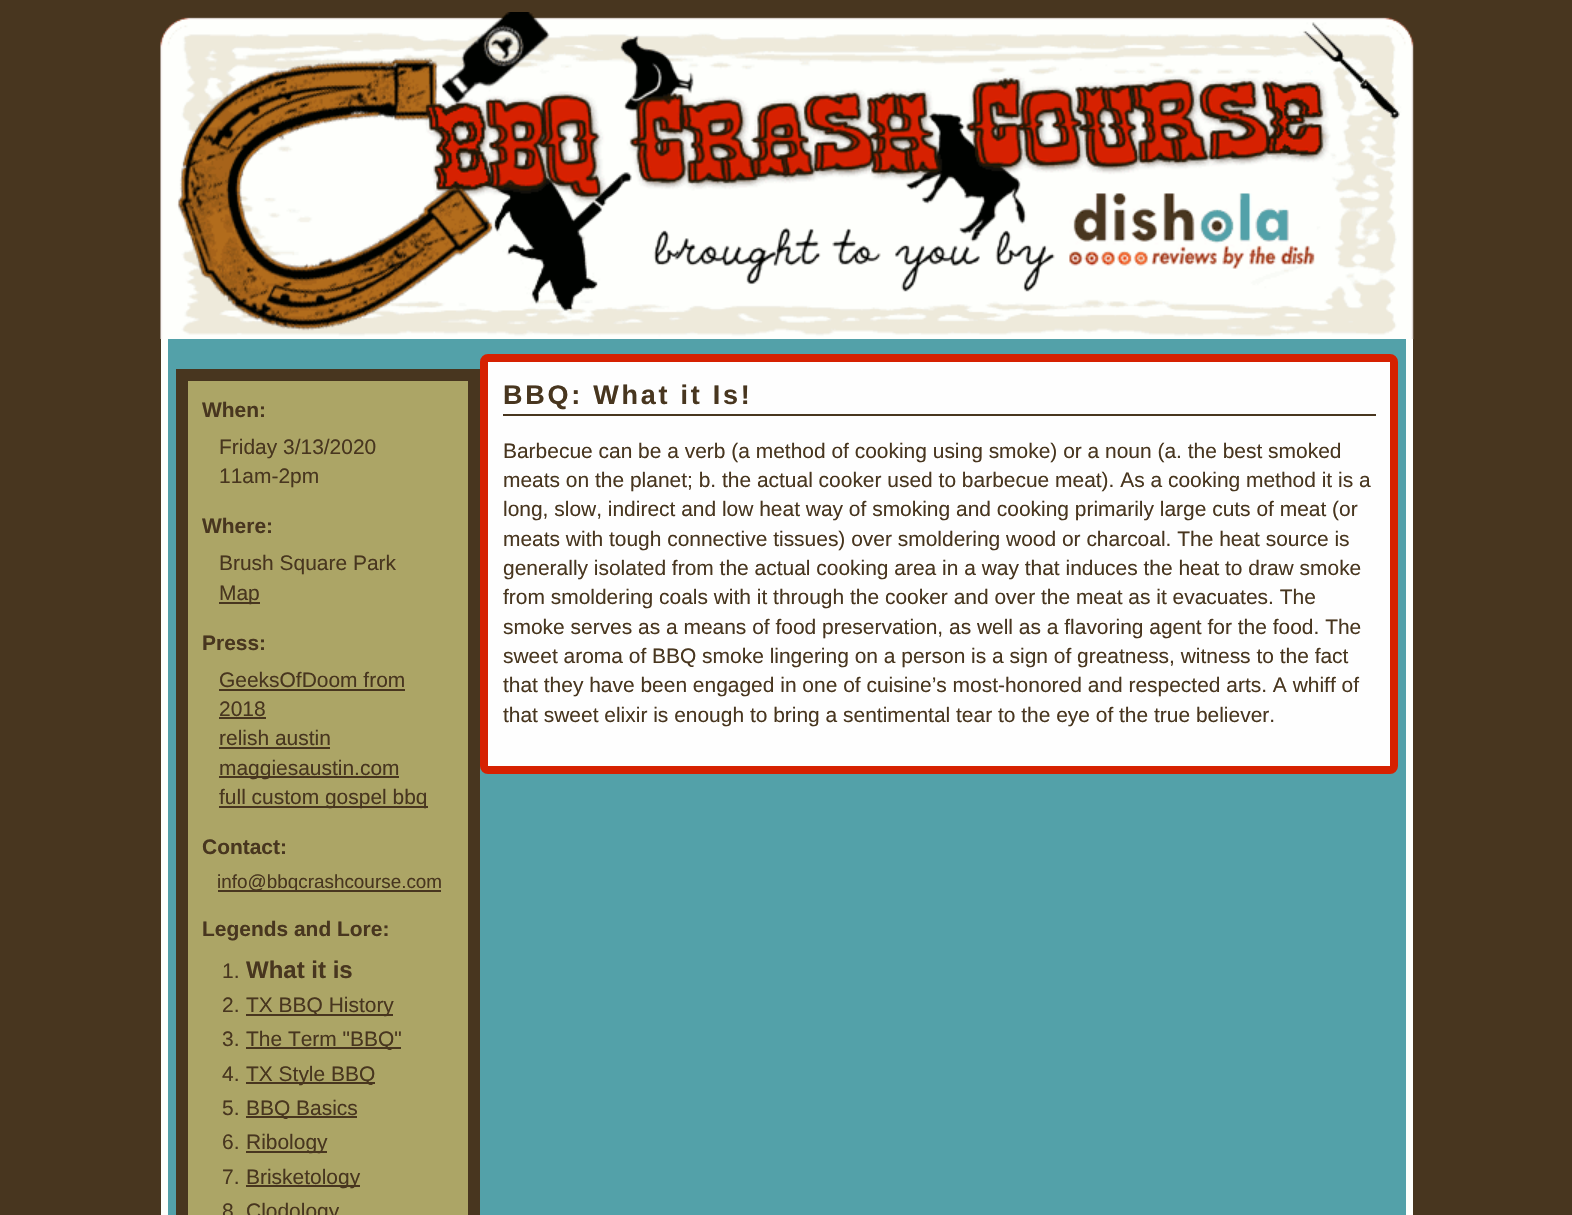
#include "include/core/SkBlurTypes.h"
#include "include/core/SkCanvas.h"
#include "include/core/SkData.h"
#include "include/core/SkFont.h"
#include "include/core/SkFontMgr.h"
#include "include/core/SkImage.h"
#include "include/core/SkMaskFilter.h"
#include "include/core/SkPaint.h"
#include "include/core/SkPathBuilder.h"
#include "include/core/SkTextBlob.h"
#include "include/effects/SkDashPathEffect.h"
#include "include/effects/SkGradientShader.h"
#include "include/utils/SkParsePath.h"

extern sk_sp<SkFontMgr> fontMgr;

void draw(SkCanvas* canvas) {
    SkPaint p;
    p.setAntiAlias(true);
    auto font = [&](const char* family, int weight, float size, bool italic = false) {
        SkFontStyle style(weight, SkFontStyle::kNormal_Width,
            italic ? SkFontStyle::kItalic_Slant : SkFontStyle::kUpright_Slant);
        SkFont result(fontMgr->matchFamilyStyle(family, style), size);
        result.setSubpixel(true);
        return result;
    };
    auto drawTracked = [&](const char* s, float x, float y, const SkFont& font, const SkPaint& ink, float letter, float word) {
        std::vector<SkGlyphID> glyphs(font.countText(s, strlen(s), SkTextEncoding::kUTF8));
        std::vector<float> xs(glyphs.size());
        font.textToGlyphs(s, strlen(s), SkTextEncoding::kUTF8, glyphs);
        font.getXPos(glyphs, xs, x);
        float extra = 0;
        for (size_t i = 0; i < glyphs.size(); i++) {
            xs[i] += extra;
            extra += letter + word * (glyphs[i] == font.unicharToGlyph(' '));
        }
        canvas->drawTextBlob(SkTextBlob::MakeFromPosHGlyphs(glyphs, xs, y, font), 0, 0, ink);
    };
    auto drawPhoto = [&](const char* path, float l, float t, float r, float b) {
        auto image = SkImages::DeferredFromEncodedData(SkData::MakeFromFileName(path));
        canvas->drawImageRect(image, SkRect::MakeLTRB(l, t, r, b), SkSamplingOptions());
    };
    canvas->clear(0xFF48361F);
    drawPhoto("media/1.png", 160, 12, 1414, 339);
    {
        const struct { float l, t, r, b; SkColor color; } items[] = {
            {168, 339, 1406, 1215, 0xFF53A1A9},
            {1406, 339, 1413, 1215, 0xFFFEFFFC},
            {161, 339, 168, 1215, 0xFFFEFFFC},
            {176, 369, 480, 381, 0xFF48361F},
            {188, 381, 468, 1215, 0xFFACA566},
            {468, 381, 480, 1215, 0xFF48361F},
            {176, 381, 188, 1215, 0xFF48361F},
        };
        for (auto [l, t, r, b, color] : items) {
            p.setColor(color);
            canvas->drawRect(SkRect::MakeLTRB(l, t, r, b), p);
        }
    }
    auto font1 = font("Liberation Sans", 700, 20.95f);
    canvas->drawString("When:", 202, 417, font1, p);
    auto font2 = font("Liberation Sans", 400, 20.95f);
    canvas->drawString("Friday 3/13/2020", 219, 454, font2, p);
    canvas->drawString("11am-2pm", 219, 483, font2, p);
    canvas->drawString("Where:", 202, 533, font1, p);
    canvas->drawString("Brush Square Park", 219, 570, font2, p);
    canvas->drawRect(SkRect::MakeLTRB(219, 602, 260, 604), p);
    canvas->drawString("Map", 219, 600, font2, p);
    canvas->drawString("Press:", 202, 650, font1, p);
    canvas->drawString("GeeksOfDoom from", 219, 687, font2, p);
    canvas->drawRect(SkRect::MakeLTRB(219, 689, 405, 691), p);
    canvas->drawString("2018", 219, 716, font2, p);
    canvas->drawRect(SkRect::MakeLTRB(219, 717, 266, 719), p);
    canvas->drawString("relish austin", 219, 745, font2, p);
    canvas->drawRect(SkRect::MakeLTRB(219, 747, 330, 749), p);
    canvas->drawRect(SkRect::MakeLTRB(219, 776, 399, 778), p);
    canvas->drawString("maggiesaustin.com", 219, 775, font2, p);
    canvas->drawRect(SkRect::MakeLTRB(219, 806, 428, 808), p);
    canvas->drawString("full custom gospel bbq", 219, 804, font2, p);
    canvas->drawString("Contact:", 202, 854, font1, p);
    canvas->drawRect(SkRect::MakeLTRB(218, 890, 441, 892), p);
    auto font3 = font("Liberation Sans", 400, 18.9f);
    canvas->drawString("info@bbqcrashcourse.com", 217, 888, font3, p);
    canvas->drawString("Legends and Lore:", 202, 936, font1, p);
    canvas->drawString("1.", 222, 978, font2, p);
    auto font4 = font("Liberation Sans", 700, 24);
    canvas->drawString("What it is", 246, 978, font4, p);
    canvas->drawString("2.", 222, 1012, font2, p);
    canvas->drawRect(SkRect::MakeLTRB(246, 1014, 393, 1016), p);
    canvas->drawString("TX BBQ History", 246, 1012, font2, p);
    canvas->drawString("3.", 222, 1046, font2, p);
    canvas->drawRect(SkRect::MakeLTRB(246, 1047, 401, 1049), p);
    canvas->drawString("The Term \"BBQ\"", 246, 1046, font2, p);
    canvas->drawString("4.", 222, 1081, font2, p);
    canvas->drawRect(SkRect::MakeLTRB(246, 1082, 375, 1084), p);
    canvas->drawString("TX Style BBQ", 246, 1081, font2, p);
    canvas->drawString("5.", 222, 1115, font2, p);
    canvas->drawRect(SkRect::MakeLTRB(246, 1116, 357, 1118), p);
    canvas->drawString("BBQ Basics", 246, 1115, font2, p);
    canvas->drawString("6.", 222, 1149, font2, p);
    canvas->drawRect(SkRect::MakeLTRB(246, 1151, 327, 1153), p);
    canvas->drawString("Ribology", 246, 1149, font2, p);
    canvas->drawString("7.", 222, 1184, font2, p);
    canvas->drawRect(SkRect::MakeLTRB(246, 1185, 360, 1187), p);
    {
        const struct { const char* s; float x, y; } items[] = {
            {"Brisketology", 246, 1184},
            {"8", 222, 1218},
            {"Clodology", 246, 1218},
        };
        for (auto [s, x, y] : items) {
            canvas->drawString(s, x, y, font2, p);
        }
    }
    p.setColor(0xFFFEFEFE);
    canvas->drawRoundRect(SkRect::MakeLTRB(484, 358, 1394, 770), 4, 4, p);
    p.setStyle(SkPaint::kStroke_Style);
    p.setStrokeWidth(8);
    p.setColor(0xFFD62101);
    canvas->drawRoundRect(SkRect::MakeLTRB(484, 358, 1394, 770), 4, 4, p);
    p.setStyle(SkPaint::kFill_Style);
    p.setColor(0xFF48361F);
    canvas->drawRect(SkRect::MakeLTRB(503, 414, 1376, 416), p);
    auto font5 = font("Liberation Sans", 700, 27);
    drawTracked("BBQ: What it Is!", 503, 404, font5, p, 2.75f, 0);
    {
        const struct { const char* s; float x, y; } items[] = {
            {"Barbecue can be a verb (a method of cooking using smoke) or a noun (a. the best smoked", 503, 458},
            {"meats on the planet; b. the actual cooker used to barbecue meat). As a cooking method it is a", 503, 487},
            {"long, slow, indirect and low heat way of smoking and cooking primarily large cuts of meat (or", 503, 516},
            {"meats with tough connective tissues) over smoldering wood or charcoal. The heat source is", 503, 546},
            {"generally isolated from the actual cooking area in a way that induces the heat to draw smoke", 503, 575},
            {"from smoldering coals with it through the cooker and over the meat as it evacuates. The", 503, 604},
            {"smoke serves as a means of food preservation, as well as a flavoring agent for the food. The", 503, 634},
            {"sweet aroma of BBQ smoke lingering on a person is a sign of greatness, witness to the fact", 503, 663},
            {"that they have been engaged in one of cuisine’s most-honored and respected arts. A whiff of", 503, 692},
            {"that sweet elixir is enough to bring a sentimental tear to the eye of the true believer.", 503, 722},
        };
        for (auto [s, x, y] : items) {
            canvas->drawString(s, x, y, font2, p);
        }
    }
}
